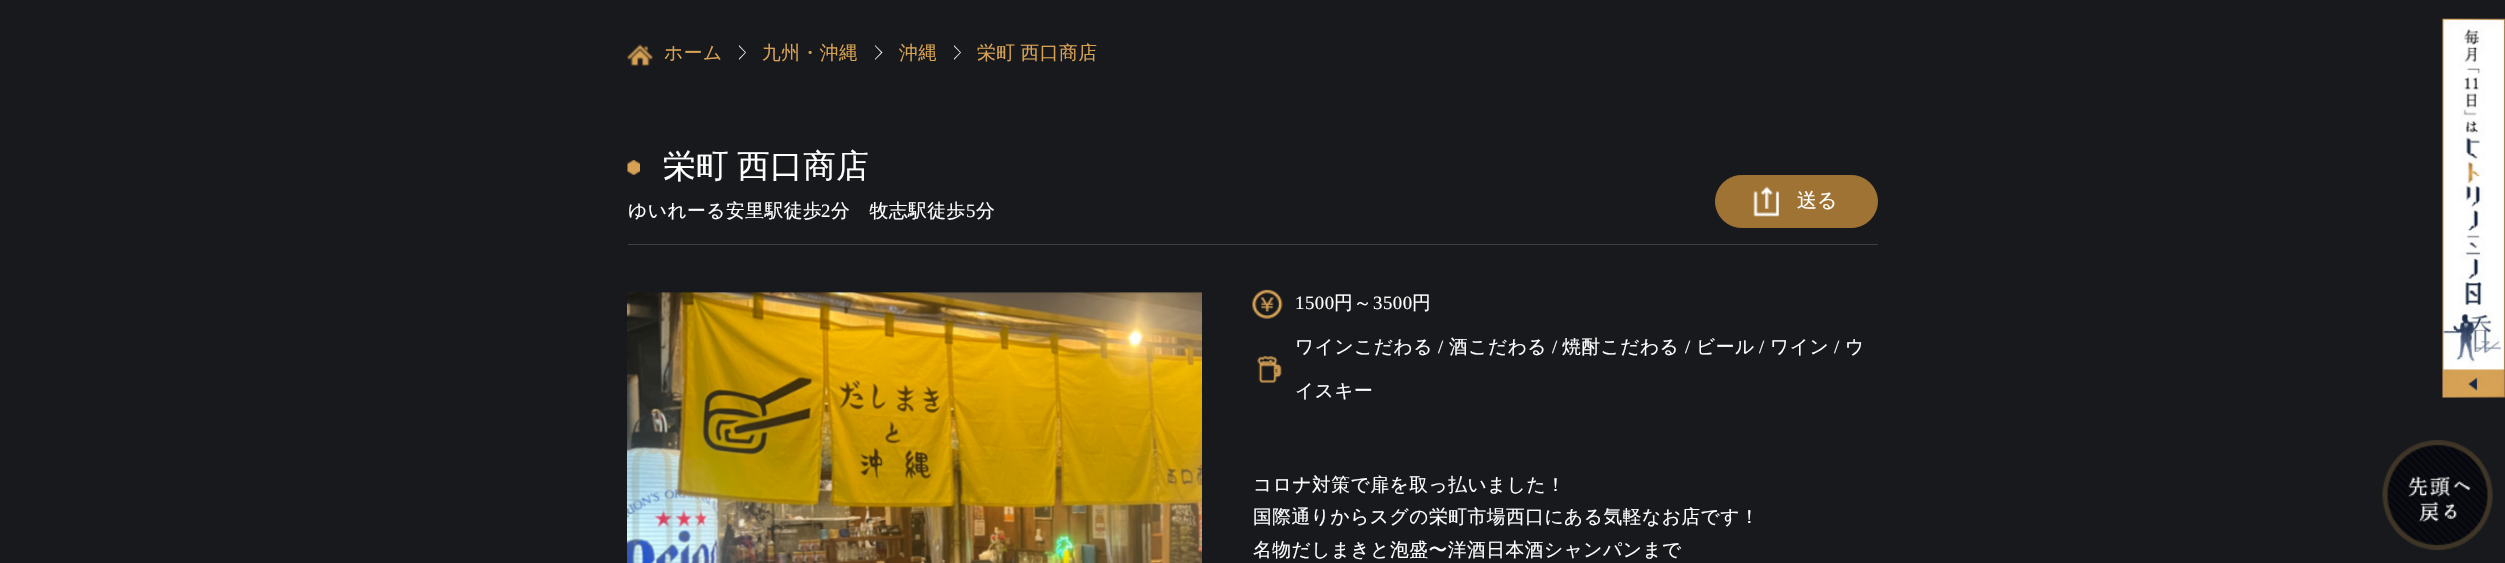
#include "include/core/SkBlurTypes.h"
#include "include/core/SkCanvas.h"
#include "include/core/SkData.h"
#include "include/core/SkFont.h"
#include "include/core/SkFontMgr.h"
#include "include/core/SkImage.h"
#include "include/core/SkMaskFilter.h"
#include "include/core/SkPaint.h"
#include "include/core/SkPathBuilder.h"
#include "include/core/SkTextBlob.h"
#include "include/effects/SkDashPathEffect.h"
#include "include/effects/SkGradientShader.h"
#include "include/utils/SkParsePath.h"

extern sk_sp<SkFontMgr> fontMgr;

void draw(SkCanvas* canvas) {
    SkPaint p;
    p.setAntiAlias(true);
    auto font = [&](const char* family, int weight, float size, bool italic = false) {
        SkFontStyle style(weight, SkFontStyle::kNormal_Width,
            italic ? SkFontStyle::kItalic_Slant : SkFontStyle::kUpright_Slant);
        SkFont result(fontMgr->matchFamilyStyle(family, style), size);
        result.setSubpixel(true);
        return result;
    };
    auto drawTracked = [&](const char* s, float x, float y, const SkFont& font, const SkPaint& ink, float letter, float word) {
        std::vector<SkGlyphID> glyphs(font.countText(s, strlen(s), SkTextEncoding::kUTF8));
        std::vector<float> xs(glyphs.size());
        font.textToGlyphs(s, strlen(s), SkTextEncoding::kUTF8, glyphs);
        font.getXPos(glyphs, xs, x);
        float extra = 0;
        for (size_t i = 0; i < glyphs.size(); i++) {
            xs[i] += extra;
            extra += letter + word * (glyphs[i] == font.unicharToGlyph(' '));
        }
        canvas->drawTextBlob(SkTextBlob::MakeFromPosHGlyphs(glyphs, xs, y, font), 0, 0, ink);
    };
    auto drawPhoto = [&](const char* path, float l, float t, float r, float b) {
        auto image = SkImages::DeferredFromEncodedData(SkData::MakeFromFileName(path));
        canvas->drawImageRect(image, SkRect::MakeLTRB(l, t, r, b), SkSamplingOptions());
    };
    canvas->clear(0xFF17191D);
    drawPhoto("media/1.png", 627, 44, 653, 66);
    auto font1 = font("WenQuanYi Zen Hei", 500, 18.75f);
    p.setColor(0xFFD8A255);
    drawTracked("ホーム", 664, 59, font1, p, 0.5f, 0);
    p.setColor(0xFFECECEC);
    canvas->drawPath(SkPathBuilder().moveTo(739, 60).lineTo(739, 45).lineTo(746, 52.5f).close().detach(), p);
    p.setColor(0xFF17191D);
    canvas->drawPath(SkPathBuilder().moveTo(737.5f, 60).lineTo(737.5f, 45).lineTo(745, 52.5f).close().detach(), p);
    p.setColor(0xFFD8A255);
    drawTracked("九州・沖縄", 762, 59, font1, p, 0.5f, 0);
    p.setColor(0xFFECECEC);
    canvas->drawPath(SkPathBuilder().moveTo(875, 60).lineTo(875, 45).lineTo(882.5f, 52.5f).close().detach(), p);
    p.setColor(0xFF17191D);
    canvas->drawPath(SkPathBuilder().moveTo(874, 60).lineTo(874, 45).lineTo(881, 52.5f).close().detach(), p);
    p.setColor(0xFFD8A255);
    drawTracked("沖縄", 899, 59, font1, p, 0.5f, 0);
    p.setColor(0xFFECECEC);
    canvas->drawPath(SkPathBuilder().moveTo(954, 60).lineTo(954, 45).lineTo(961, 52.5f).close().detach(), p);
    p.setColor(0xFF17191D);
    canvas->drawPath(SkPathBuilder().moveTo(952.5f, 60).lineTo(952.5f, 45).lineTo(960, 52.5f).close().detach(), p);
    p.setColor(0xFFD8A255);
    drawTracked("栄町 西口商店", 977, 59, font1, p, 0.5f, -1);
    p.setColor(0xFF404040);
    canvas->drawRect(SkRect::MakeLTRB(628, 244, 1878, 245), p);
    drawPhoto("media/2.png", 627, 160, 640, 175);
    auto font2 = font("WenQuanYi Zen Hei", 500, 32.5f);
    p.setColor(0xFFFFFFFF);
    drawTracked("栄町 西口商店", 663, 177, font2, p, 0.5f, -2);
    drawTracked("ゆいれーる安里駅徒歩", 628, 217, font1, p, 0.5f, 0);
    auto font3 = font("Liberation Serif", 400, 18.75f);
    drawTracked("2", 821, 217, font3, p, 0.5f, 0);
    drawTracked("分　牧志駅徒歩", 831, 217, font1, p, 0.5f, 0);
    drawTracked("5", 966, 217, font3, p, 0.5f, 0);
    drawTracked("分", 976, 217, font1, p, 0.5f, 0);
    p.setColor(0xFF9F7333);
    canvas->drawRoundRect(SkRect::MakeLTRB(1715.5f, 175.5f, 1877.5f, 227.5f), 26, 26, p);
    p.setStyle(SkPaint::kStroke_Style);
    p.setStrokeWidth(1);
    canvas->drawRoundRect(SkRect::MakeLTRB(1715.5f, 175.5f, 1877.5f, 227.5f), 26, 26, p);
    drawPhoto("media/3.png", 1753, 186, 1779, 217);
    auto font4 = font("WenQuanYi Zen Hei", 500, 20);
    p.setStyle(SkPaint::kFill_Style);
    p.setColor(0xFFFFFFFF);
    canvas->drawString("送る", 1797, 207, font4, p);
    drawPhoto("media/4.png", 627, 292, 1202, 563);
    drawPhoto("media/5.png", 1252, 289, 1283, 319);
    drawTracked("1500", 1295, 309, font3, p, 0.5f, 0);
    drawTracked("円～", 1334, 309, font1, p, 0.5f, 0);
    drawTracked("3500", 1373, 309, font3, p, 0.5f, 0);
    drawTracked("円", 1412, 309, font1, p, 0.5f, 0);
    drawPhoto("media/6.png", 1257, 356, 1282, 383);
    drawTracked("ワインこだわる", 1295, 353, font1, p, 0.5f, 0);
    drawTracked("/", 1438, 353, font3, p, 0.5f, 0);
    drawTracked("酒こだわる", 1449, 353, font1, p, 0.5f, 0);
    drawTracked("/", 1552, 353, font3, p, 0.5f, 0);
    drawTracked("焼酎こだわる", 1562, 353, font1, p, 0.5f, 0);
    drawTracked("/", 1685, 353, font3, p, 0.5f, 0);
    drawTracked("ビール", 1696, 353, font1, p, 0.5f, 0);
    drawTracked("/", 1759, 353, font3, p, 0.5f, 0);
    drawTracked("ワイン", 1770, 353, font1, p, 0.5f, 0);
    drawTracked("/", 1834, 353, font3, p, 0.5f, 0);
    {
        const struct { const char* s; float x, y; } items[] = {
            {"ウ", 1845, 353},
            {"イスキー", 1295, 397},
            {"コロナ対策で扉を取っ払いました！", 1253, 491},
            {"国際通りからスグの栄町市場西口にある気軽なお店です！", 1253, 523},
            {"名物だしまきと泡盛〜洋酒日本酒シャンパンまで", 1253, 556},
        };
        for (auto [s, x, y] : items) {
            drawTracked(s, x, y, font1, p, 0.5f, 0);
        }
    }
    drawPhoto("media/7.png", 2442, 18, 2505, 398);
    drawPhoto("media/8.png", 2382, 440, 2493, 551);
}
